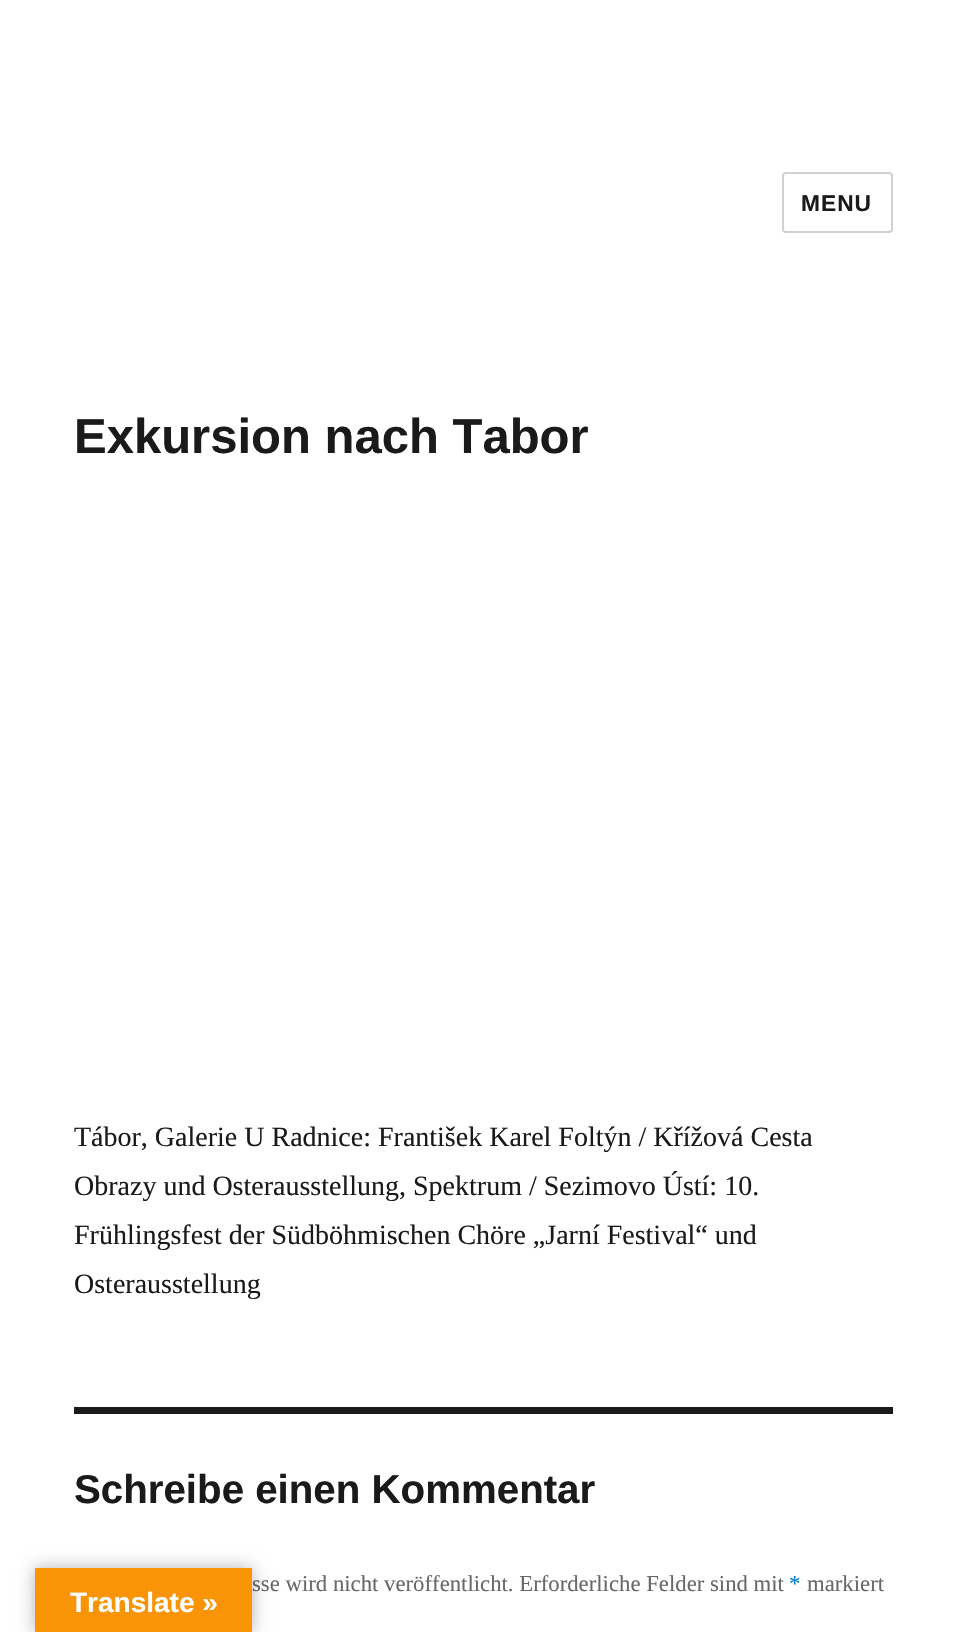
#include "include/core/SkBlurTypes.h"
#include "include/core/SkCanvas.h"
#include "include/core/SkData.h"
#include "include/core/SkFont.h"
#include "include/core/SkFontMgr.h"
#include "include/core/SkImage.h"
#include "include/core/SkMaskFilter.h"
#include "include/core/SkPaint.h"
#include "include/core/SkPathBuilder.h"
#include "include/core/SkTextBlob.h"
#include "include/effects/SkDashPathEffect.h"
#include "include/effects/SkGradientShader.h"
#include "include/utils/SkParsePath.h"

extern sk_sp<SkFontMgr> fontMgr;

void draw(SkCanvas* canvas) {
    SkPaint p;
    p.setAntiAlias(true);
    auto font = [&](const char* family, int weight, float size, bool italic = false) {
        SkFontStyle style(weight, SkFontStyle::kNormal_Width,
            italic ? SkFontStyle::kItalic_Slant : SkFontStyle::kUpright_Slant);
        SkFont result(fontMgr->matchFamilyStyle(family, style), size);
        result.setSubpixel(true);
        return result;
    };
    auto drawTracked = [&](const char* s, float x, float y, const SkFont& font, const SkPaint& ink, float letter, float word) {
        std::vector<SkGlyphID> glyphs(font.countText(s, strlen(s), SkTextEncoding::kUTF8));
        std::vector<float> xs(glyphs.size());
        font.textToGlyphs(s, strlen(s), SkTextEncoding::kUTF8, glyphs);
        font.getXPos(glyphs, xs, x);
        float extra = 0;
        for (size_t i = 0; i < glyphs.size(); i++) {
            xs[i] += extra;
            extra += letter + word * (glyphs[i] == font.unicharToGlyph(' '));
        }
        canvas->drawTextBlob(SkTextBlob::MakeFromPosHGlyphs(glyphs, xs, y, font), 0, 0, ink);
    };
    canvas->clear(0xFFFFFFFF);
    p.setStyle(SkPaint::kStroke_Style);
    p.setStrokeWidth(2);
    p.setColor(0xFFD1D1D1);
    canvas->drawRoundRect(SkRect::MakeLTRB(783, 173, 892, 232), 3, 3, p);
    auto font1 = font("Liberation Sans", 700, 22.75f);
    p.setStyle(SkPaint::kFill_Style);
    p.setColor(0xFF1A1A1A);
    drawTracked("MENU", 801, 211, font1, p, 1, 0);
    auto font2 = font("Liberation Sans", 700, 49);
    canvas->drawString("Exkursion nach Tabor", 74, 453, font2, p);
    auto font3 = font("Liberation Serif", 400, 28);
    {
        const struct { const char* s; float x, y; } items[] = {
            {"Tábor, Galerie U Radnice: František Karel Foltýn / Křížová Cesta", 74, 1146},
            {"Obrazy und Osterausstellung, Spektrum / Sezimovo Ústí: 10.", 74, 1195},
            {"Frühlingsfest der Südböhmischen Chöre „Jarní Festival“ und", 74, 1244},
            {"Osterausstellung", 74, 1293},
        };
        for (auto [s, x, y] : items) {
            canvas->drawString(s, x, y, font3, p);
        }
    }
    canvas->drawRect(SkRect::MakeLTRB(74, 1407, 893, 1414), p);
    auto font4 = font("Liberation Sans", 700, 40.25f);
    canvas->drawString("Schreibe einen Kommentar", 74, 1503, font4, p);
    auto font5 = font("Liberation Serif", 400, 22.75f);
    p.setColor(0xFF686868);
    canvas->drawString("sse wird nicht veröffentlicht. Erforderliche Felder sind mit", 252, 1591, font5, p);
    p.setColor(0xFF007ACC);
    canvas->drawString("*", 789, 1591, font5, p);
    p.setColor(0xFF686868);
    canvas->drawString("markiert", 807, 1591, font5, p);
    p.setColor(0x4D000000);
    p.setMaskFilter(SkMaskFilter::MakeBlur(kNormal_SkBlurStyle, 8));
    canvas->drawRect(SkRect::MakeLTRB(35, 1568, 252, 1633), p);
    p.setMaskFilter(nullptr);
    p.setColor(0xFFF89406);
    canvas->drawRect(SkRect::MakeLTRB(35, 1568, 252, 1632), p);
    auto font6 = font("Liberation Sans", 700, 28);
    p.setColor(0xFFFFFFFF);
    canvas->drawString("Translate »", 70, 1612, font6, p);
}
